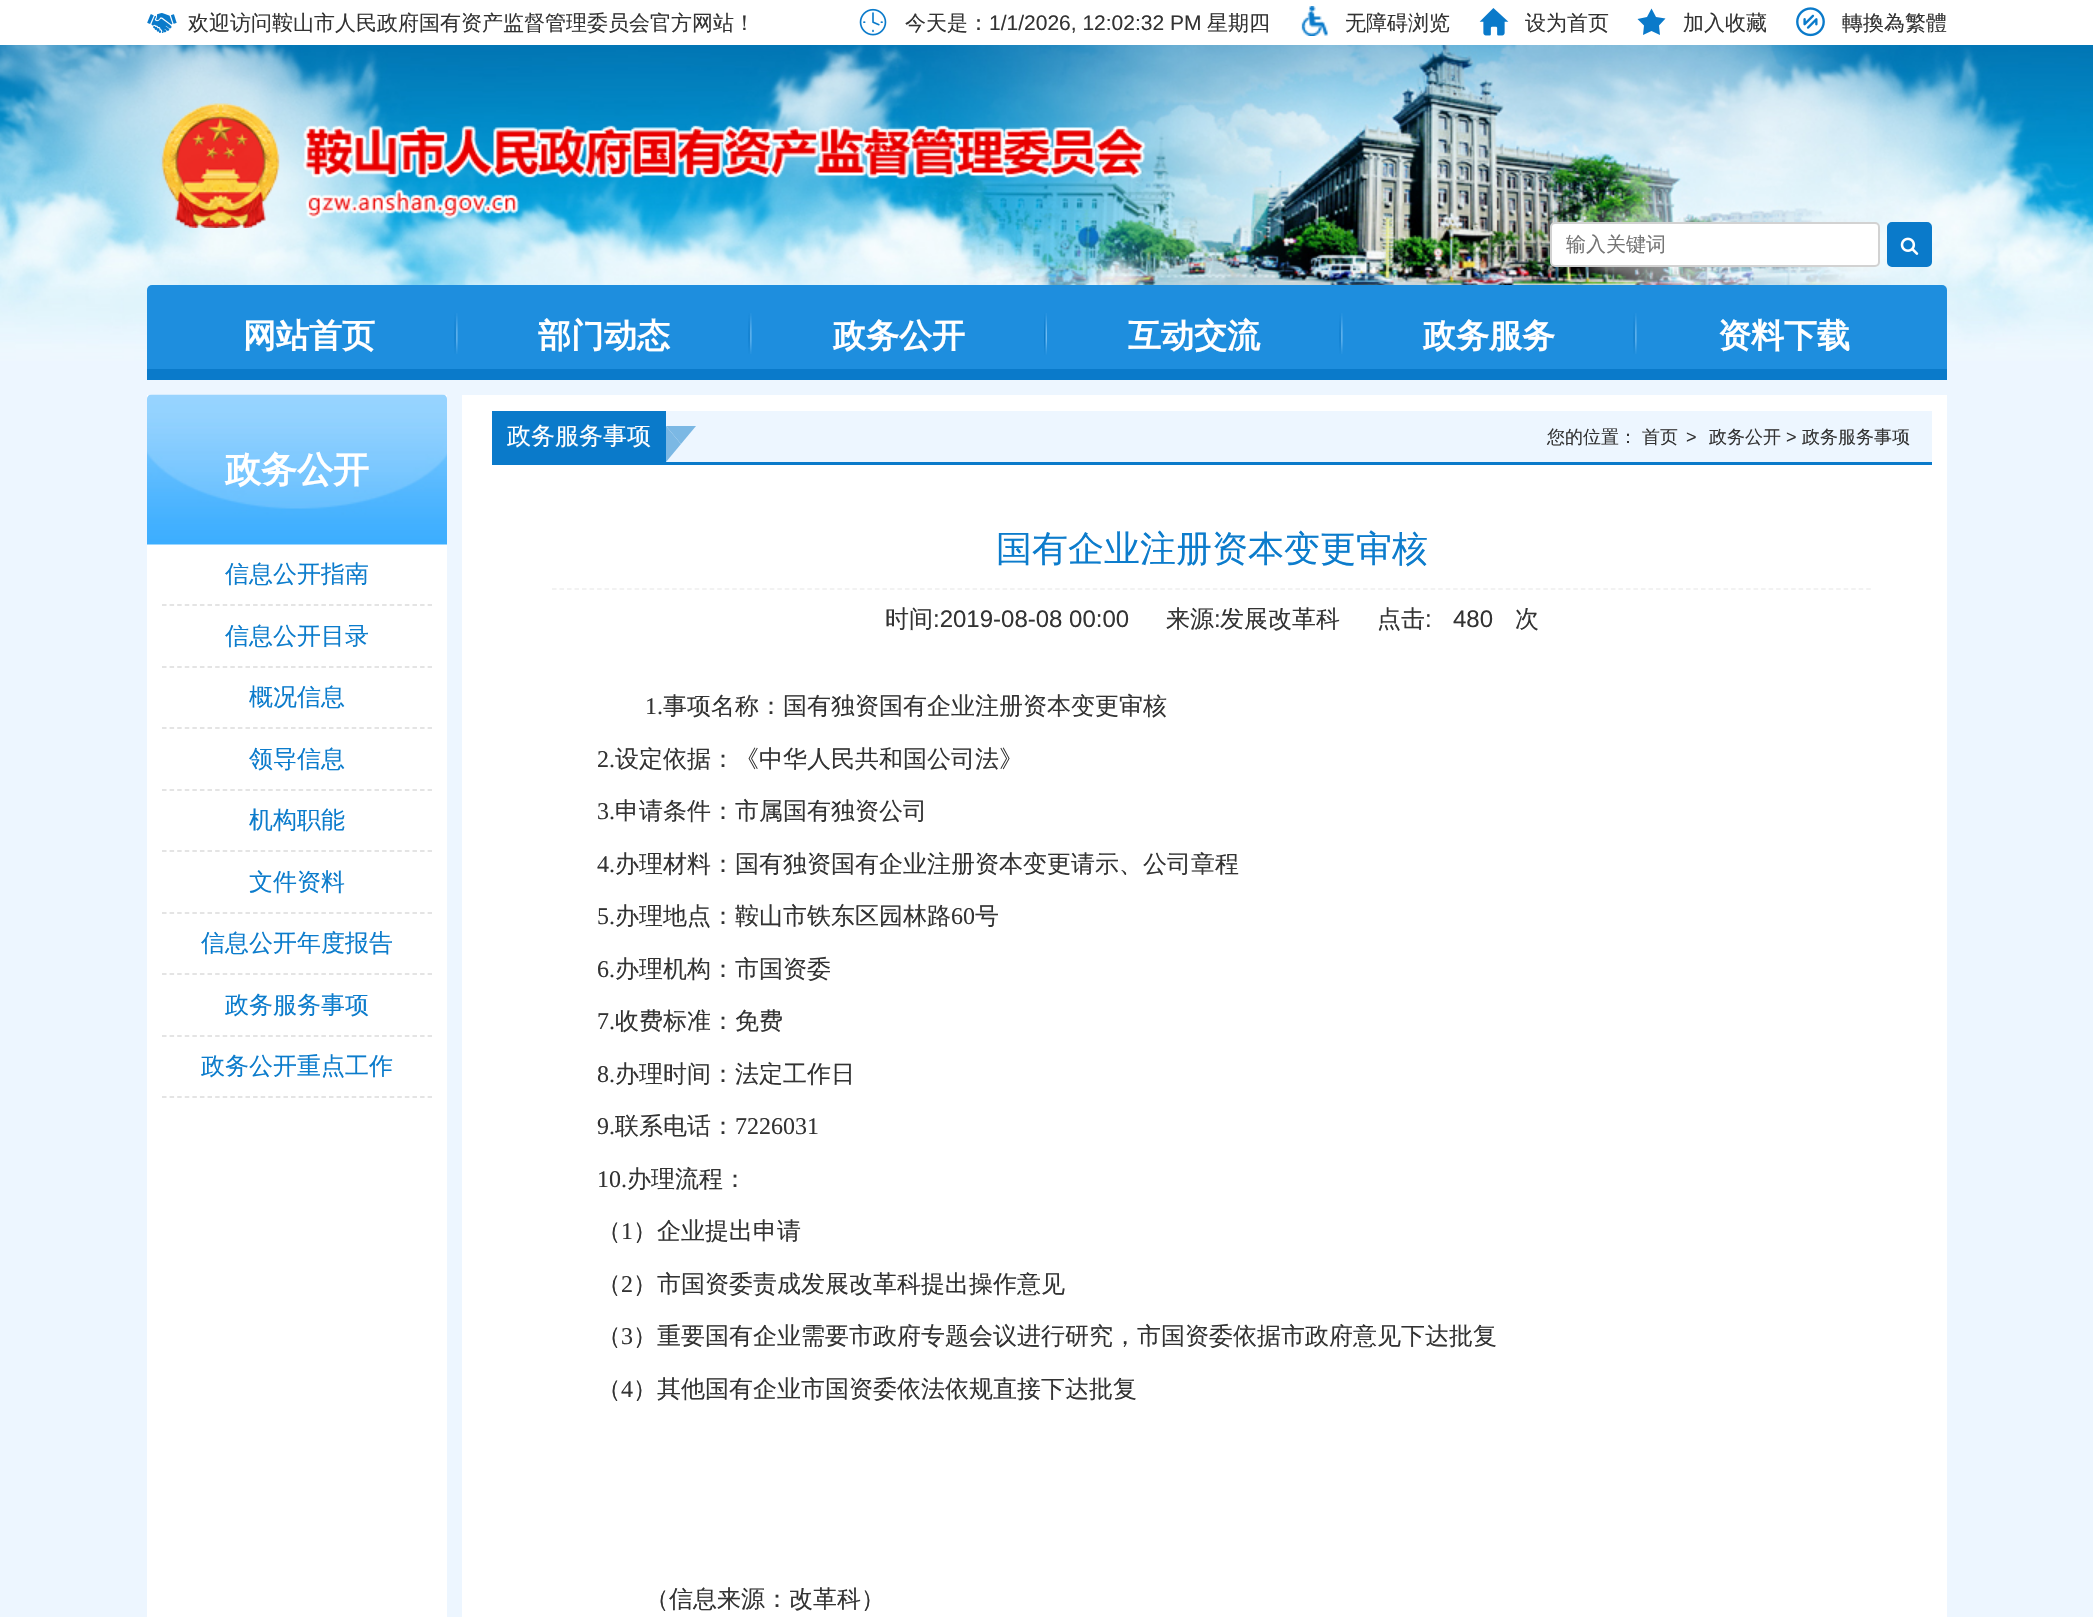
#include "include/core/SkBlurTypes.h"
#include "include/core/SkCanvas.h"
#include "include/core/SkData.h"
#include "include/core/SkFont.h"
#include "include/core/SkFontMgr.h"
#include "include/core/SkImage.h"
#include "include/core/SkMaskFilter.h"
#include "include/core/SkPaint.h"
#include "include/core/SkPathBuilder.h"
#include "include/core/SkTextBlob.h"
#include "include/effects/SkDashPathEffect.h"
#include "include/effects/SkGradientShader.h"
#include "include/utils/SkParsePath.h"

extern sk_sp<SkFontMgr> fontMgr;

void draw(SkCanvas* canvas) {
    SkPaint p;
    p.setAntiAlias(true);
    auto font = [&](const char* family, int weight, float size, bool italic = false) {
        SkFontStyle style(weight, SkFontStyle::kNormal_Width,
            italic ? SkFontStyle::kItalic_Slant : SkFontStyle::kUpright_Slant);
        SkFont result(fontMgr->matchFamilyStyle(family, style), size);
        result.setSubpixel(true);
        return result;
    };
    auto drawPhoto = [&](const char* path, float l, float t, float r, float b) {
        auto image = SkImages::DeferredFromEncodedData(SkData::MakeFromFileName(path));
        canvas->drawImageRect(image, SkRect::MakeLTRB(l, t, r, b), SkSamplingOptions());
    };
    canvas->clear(0xFFEDF6FF);
    drawPhoto("media/1.png", 0, 45, 2093, 361);
    p.setColor(0xFFFFFFFF);
    canvas->drawRect(SkRect::MakeLTRB(0, 0, 2093, 45), p);
    drawPhoto("media/2.png", 147, 13, 177, 33);
    auto font1 = font("WenQuanYi Zen Hei", 500, 21);
    p.setColor(0xFF333333);
    canvas->drawString("欢迎访问鞍山市人民政府国有资产监督管理委员会官方网站！", 188, 30, font1, p);
    drawPhoto("media/3.png", 859, 8, 887, 36);
    canvas->drawString("今天是：", 905, 30, font1, p);
    auto font2 = font("Liberation Sans", 400, 21);
    canvas->drawString("1/1/2026, 12:02:32 PM", 989, 30, font2, p);
    canvas->drawString("星期四", 1207, 30, font1, p);
    drawPhoto("media/4.png", 1301, 6, 1328, 36);
    canvas->drawString("无障碍浏览", 1345, 30, font1, p);
    drawPhoto("media/5.png", 1479, 8, 1509, 36);
    canvas->drawString("设为首页", 1525, 30, font1, p);
    p.setColor(0xFF0A7ACA);
    canvas->drawPath(SkPathBuilder().moveTo(1651.5f, 8.5f).lineTo(1656, 17).lineTo(1665.5f, 18.5f).lineTo(1659, 25.5f).lineTo(1660, 35).lineTo(1651.5f, 31).lineTo(1643, 35).lineTo(1644, 25.5f).lineTo(1637.5f, 19).lineTo(1647, 17).close().detach(), p);
    p.setColor(0xFF333333);
    canvas->drawString("加入收藏", 1683, 30, font1, p);
    drawPhoto("media/6.png", 1796, 7, 1825, 37);
    canvas->drawString("轉換為繁體", 1842, 30, font1, p);
    drawPhoto("media/7.png", 161, 103, 1147, 228);
    p.setColor(0xFFFFFFFF);
    canvas->drawRoundRect(SkRect::MakeLTRB(1551, 223, 1879, 266), 4, 4, p);
    p.setStyle(SkPaint::kStroke_Style);
    p.setStrokeWidth(2);
    p.setColor(0xFFD2D2D2);
    canvas->drawRoundRect(SkRect::MakeLTRB(1551, 223, 1879, 266), 4, 4, p);
    auto font3 = font("WenQuanYi Zen Hei", 500, 20);
    p.setStyle(SkPaint::kFill_Style);
    p.setColor(0xFF757575);
    canvas->drawString("输入关键词", 1566, 251, font3, p);
    p.setColor(0xFF0A7ACA);
    canvas->drawRoundRect(SkRect::MakeLTRB(1888, 223, 1931, 266), 4, 4, p);
    p.setStyle(SkPaint::kStroke_Style);
    canvas->drawRoundRect(SkRect::MakeLTRB(1888, 223, 1931, 266), 4, 4, p);
    drawPhoto("media/8.png", 1900, 237, 1919, 255);
    p.setStyle(SkPaint::kFill_Style);
    p.setColor(0xFF1E8EDE);
    canvas->drawRoundRect(SkRect::MakeLTRB(147, 285, 1947, 380), 5, 5, p);
    drawPhoto("media/9.png", 454, 313, 458, 354);
    auto font4 = font("WenQuanYi Zen Hei", 700, 33);
    p.setColor(0xFFFFFFFF);
    canvas->drawString("网站首页", 243, 347, font4, p);
    drawPhoto("media/9.png", 748, 313, 752, 354);
    canvas->drawString("部门动态", 538, 347, font4, p);
    drawPhoto("media/10.png", 1044, 313, 1047, 355);
    canvas->drawString("政务公开", 833, 347, font4, p);
    drawPhoto("media/9.png", 1339, 313, 1343, 354);
    canvas->drawString("互动交流", 1128, 347, font4, p);
    drawPhoto("media/9.png", 1633, 313, 1637, 354);
    canvas->drawString("政务服务", 1423, 347, font4, p);
    canvas->drawString("资料下载", 1718, 347, font4, p);
    p.setColor(0xFF0A7ACA);
    canvas->drawRect(SkRect::MakeLTRB(147, 369, 1947, 380), p);
    p.setColor(0xFFFFFFFF);
    canvas->drawRect(SkRect::MakeLTRB(147, 395, 447, 1617), p);
    drawPhoto("media/11.png", 147, 394, 447, 545);
    auto font5 = font("WenQuanYi Zen Hei", 700, 36);
    canvas->drawString("政务公开", 225, 482, font5, p);
    p.setStyle(SkPaint::kStroke_Style);
    p.setStrokeWidth(1.5f);
    p.setColor(0xFFDCDCDC);
    p.setPathEffect(SkDashPathEffect::Make({{4.5f, 3.09f}}, 0));
    canvas->drawPath(SkPathBuilder().moveTo(162, 605).lineTo(432, 605).detach(), p);
    p.setPathEffect(nullptr);
    auto font6 = font("WenQuanYi Zen Hei", 500, 24);
    p.setStyle(SkPaint::kFill_Style);
    p.setColor(0xFF0C7CCC);
    canvas->drawString("信息公开指南", 225, 582, font6, p);
    p.setStyle(SkPaint::kStroke_Style);
    p.setColor(0xFFDCDCDC);
    p.setPathEffect(SkDashPathEffect::Make({{4.5f, 3.09f}}, 0));
    canvas->drawPath(SkPathBuilder().moveTo(162, 667).lineTo(432, 667).detach(), p);
    p.setPathEffect(nullptr);
    p.setStyle(SkPaint::kFill_Style);
    p.setColor(0xFF0C7CCC);
    canvas->drawString("信息公开目录", 225, 644, font6, p);
    p.setStyle(SkPaint::kStroke_Style);
    p.setColor(0xFFDCDCDC);
    p.setPathEffect(SkDashPathEffect::Make({{4.5f, 3.09f}}, 0));
    canvas->drawPath(SkPathBuilder().moveTo(162, 728).lineTo(432, 728).detach(), p);
    p.setPathEffect(nullptr);
    p.setStyle(SkPaint::kFill_Style);
    p.setColor(0xFF0C7CCC);
    canvas->drawString("概况信息", 249, 705, font6, p);
    p.setStyle(SkPaint::kStroke_Style);
    p.setColor(0xFFDCDCDC);
    p.setPathEffect(SkDashPathEffect::Make({{4.5f, 3.09f}}, 0));
    canvas->drawPath(SkPathBuilder().moveTo(162, 790).lineTo(432, 790).detach(), p);
    p.setPathEffect(nullptr);
    p.setStyle(SkPaint::kFill_Style);
    p.setColor(0xFF0C7CCC);
    canvas->drawString("领导信息", 249, 767, font6, p);
    p.setStyle(SkPaint::kStroke_Style);
    p.setColor(0xFFDCDCDC);
    p.setPathEffect(SkDashPathEffect::Make({{4.5f, 3.09f}}, 0));
    canvas->drawPath(SkPathBuilder().moveTo(162, 851).lineTo(432, 851).detach(), p);
    p.setPathEffect(nullptr);
    p.setStyle(SkPaint::kFill_Style);
    p.setColor(0xFF0C7CCC);
    canvas->drawString("机构职能", 249, 828, font6, p);
    p.setStyle(SkPaint::kStroke_Style);
    p.setColor(0xFFDCDCDC);
    p.setPathEffect(SkDashPathEffect::Make({{4.5f, 3.09f}}, 0));
    canvas->drawPath(SkPathBuilder().moveTo(162, 913).lineTo(432, 913).detach(), p);
    p.setPathEffect(nullptr);
    p.setStyle(SkPaint::kFill_Style);
    p.setColor(0xFF0C7CCC);
    canvas->drawString("文件资料", 249, 890, font6, p);
    p.setStyle(SkPaint::kStroke_Style);
    p.setColor(0xFFDCDCDC);
    p.setPathEffect(SkDashPathEffect::Make({{4.5f, 3.09f}}, 0));
    canvas->drawPath(SkPathBuilder().moveTo(162, 974).lineTo(432, 974).detach(), p);
    p.setPathEffect(nullptr);
    p.setStyle(SkPaint::kFill_Style);
    p.setColor(0xFF0C7CCC);
    canvas->drawString("信息公开年度报告", 201, 951, font6, p);
    p.setStyle(SkPaint::kStroke_Style);
    p.setColor(0xFFDCDCDC);
    p.setPathEffect(SkDashPathEffect::Make({{4.5f, 3.09f}}, 0));
    canvas->drawPath(SkPathBuilder().moveTo(162, 1036).lineTo(432, 1036).detach(), p);
    p.setPathEffect(nullptr);
    p.setStyle(SkPaint::kFill_Style);
    p.setColor(0xFF0C7CCC);
    canvas->drawString("政务服务事项", 225, 1013, font6, p);
    p.setStyle(SkPaint::kStroke_Style);
    p.setColor(0xFFDCDCDC);
    p.setPathEffect(SkDashPathEffect::Make({{4.5f, 3.09f}}, 0));
    canvas->drawPath(SkPathBuilder().moveTo(162, 1097).lineTo(432, 1097).detach(), p);
    p.setPathEffect(nullptr);
    p.setStyle(SkPaint::kFill_Style);
    p.setColor(0xFF0C7CCC);
    canvas->drawString("政务公开重点工作", 201, 1074, font6, p);
    {
        const struct { float l, t, r, b; SkColor color; } items[] = {
            {462, 395, 1947, 1617, 0xFFFFFFFF},
            {666, 411, 1932, 462, 0xFFEDF6FF},
            {492, 462, 1932, 465, 0xFF0A7ACA},
            {492, 411, 666, 462, 0xFF0A7ACA},
        };
        for (auto [l, t, r, b, color] : items) {
            p.setColor(color);
            canvas->drawRect(SkRect::MakeLTRB(l, t, r, b), p);
        }
    }
    p.setColor(0xFFFFFFFF);
    canvas->drawString("政务服务事项", 507, 444, font6, p);
    p.setColor(0xFF7BB8E4);
    canvas->drawPath(SkPathBuilder().moveTo(666, 426).lineTo(696, 426).lineTo(681, 444).close().detach(), p);
    canvas->drawPath(SkPathBuilder().moveTo(666, 462).lineTo(666, 426).lineTo(681, 444).close().detach(), p);
    auto font7 = font("WenQuanYi Zen Hei", 500, 18);
    p.setColor(0xFF333333);
    canvas->drawString("您的位置：", 1547, 443, font7, p);
    canvas->drawString("首页", 1642, 443, font7, p);
    auto font8 = font("Liberation Sans", 400, 18);
    canvas->drawString(">", 1686, 443, font8, p);
    canvas->drawString("政务公开", 1709, 443, font7, p);
    canvas->drawString(">", 1786, 443, font8, p);
    canvas->drawString("政务服务事项", 1802, 443, font7, p);
    p.setStyle(SkPaint::kStroke_Style);
    p.setColor(0xFFEEEEEE);
    p.setPathEffect(SkDashPathEffect::Make({{4.5f, 3.01f}}, 0));
    canvas->drawPath(SkPathBuilder().moveTo(552, 589).lineTo(1872, 589).detach(), p);
    p.setPathEffect(nullptr);
    auto font9 = font("WenQuanYi Zen Hei", 500, 36);
    p.setStyle(SkPaint::kFill_Style);
    p.setColor(0xFF0C7CCC);
    canvas->drawString("国有企业注册资本变更审核", 996, 561, font9, p);
    p.setColor(0xFF333333);
    canvas->drawString("时间", 885, 627, font6, p);
    auto font10 = font("Liberation Sans", 400, 24);
    canvas->drawString(":2019-08-08 00:00", 933, 627, font10, p);
    canvas->drawString("来源", 1166, 627, font6, p);
    canvas->drawString(":", 1214, 627, font10, p);
    canvas->drawString("发展改革科", 1220, 627, font6, p);
    canvas->drawString("点击", 1377, 627, font6, p);
    canvas->drawString(":", 1425, 627, font10, p);
    canvas->drawString("480", 1453, 627, font10, p);
    canvas->drawString("次", 1515, 627, font6, p);
    auto font11 = font("Liberation Serif", 400, 24);
    canvas->drawString("1.", 645, 714, font11, p);
    canvas->drawString("事项名称：国有独资国有企业注册资本变更审核", 663, 714, font6, p);
    canvas->drawString("2.", 597, 767, font11, p);
    canvas->drawString("设定依据：《中华人民共和国公司法》", 615, 767, font6, p);
    canvas->drawString("3.", 597, 819, font11, p);
    canvas->drawString("申请条件：市属国有独资公司", 615, 819, font6, p);
    canvas->drawString("4.", 597, 872, font11, p);
    canvas->drawString("办理材料：国有独资国有企业注册资本变更请示、公司章程", 615, 872, font6, p);
    canvas->drawString("5.", 597, 924, font11, p);
    canvas->drawString("办理地点：鞍山市铁东区园林路", 615, 924, font6, p);
    canvas->drawString("60", 951, 924, font11, p);
    canvas->drawString("号", 975, 924, font6, p);
    canvas->drawString("6.", 597, 977, font11, p);
    canvas->drawString("办理机构：市国资委", 615, 977, font6, p);
    canvas->drawString("7.", 597, 1029, font11, p);
    canvas->drawString("收费标准：免费", 615, 1029, font6, p);
    canvas->drawString("8.", 597, 1082, font11, p);
    canvas->drawString("办理时间：法定工作日", 615, 1082, font6, p);
    canvas->drawString("9.", 597, 1134, font11, p);
    canvas->drawString("联系电话：", 615, 1134, font6, p);
    canvas->drawString("7226031", 735, 1134, font11, p);
    canvas->drawString("10.", 597, 1187, font11, p);
    canvas->drawString("办理流程：", 627, 1187, font6, p);
    canvas->drawString("（", 597, 1239, font6, p);
    canvas->drawString("1", 621, 1239, font11, p);
    canvas->drawString("）企业提出申请", 633, 1239, font6, p);
    canvas->drawString("（", 597, 1292, font6, p);
    canvas->drawString("2", 621, 1292, font11, p);
    canvas->drawString("）市国资委责成发展改革科提出操作意见", 633, 1292, font6, p);
    canvas->drawString("（", 597, 1344, font6, p);
    canvas->drawString("3", 621, 1344, font11, p);
    canvas->drawString("）重要国有企业需要市政府专题会议进行研究，市国资委依据市政府意见下达批复", 633, 1344, font6, p);
    canvas->drawString("（", 597, 1397, font6, p);
    canvas->drawString("4", 621, 1397, font11, p);
    canvas->drawString("）其他国有企业市国资委依法依规直接下达批复", 633, 1397, font6, p);
    canvas->drawString("（信息来源：改革科）", 645, 1607, font6, p);
}
